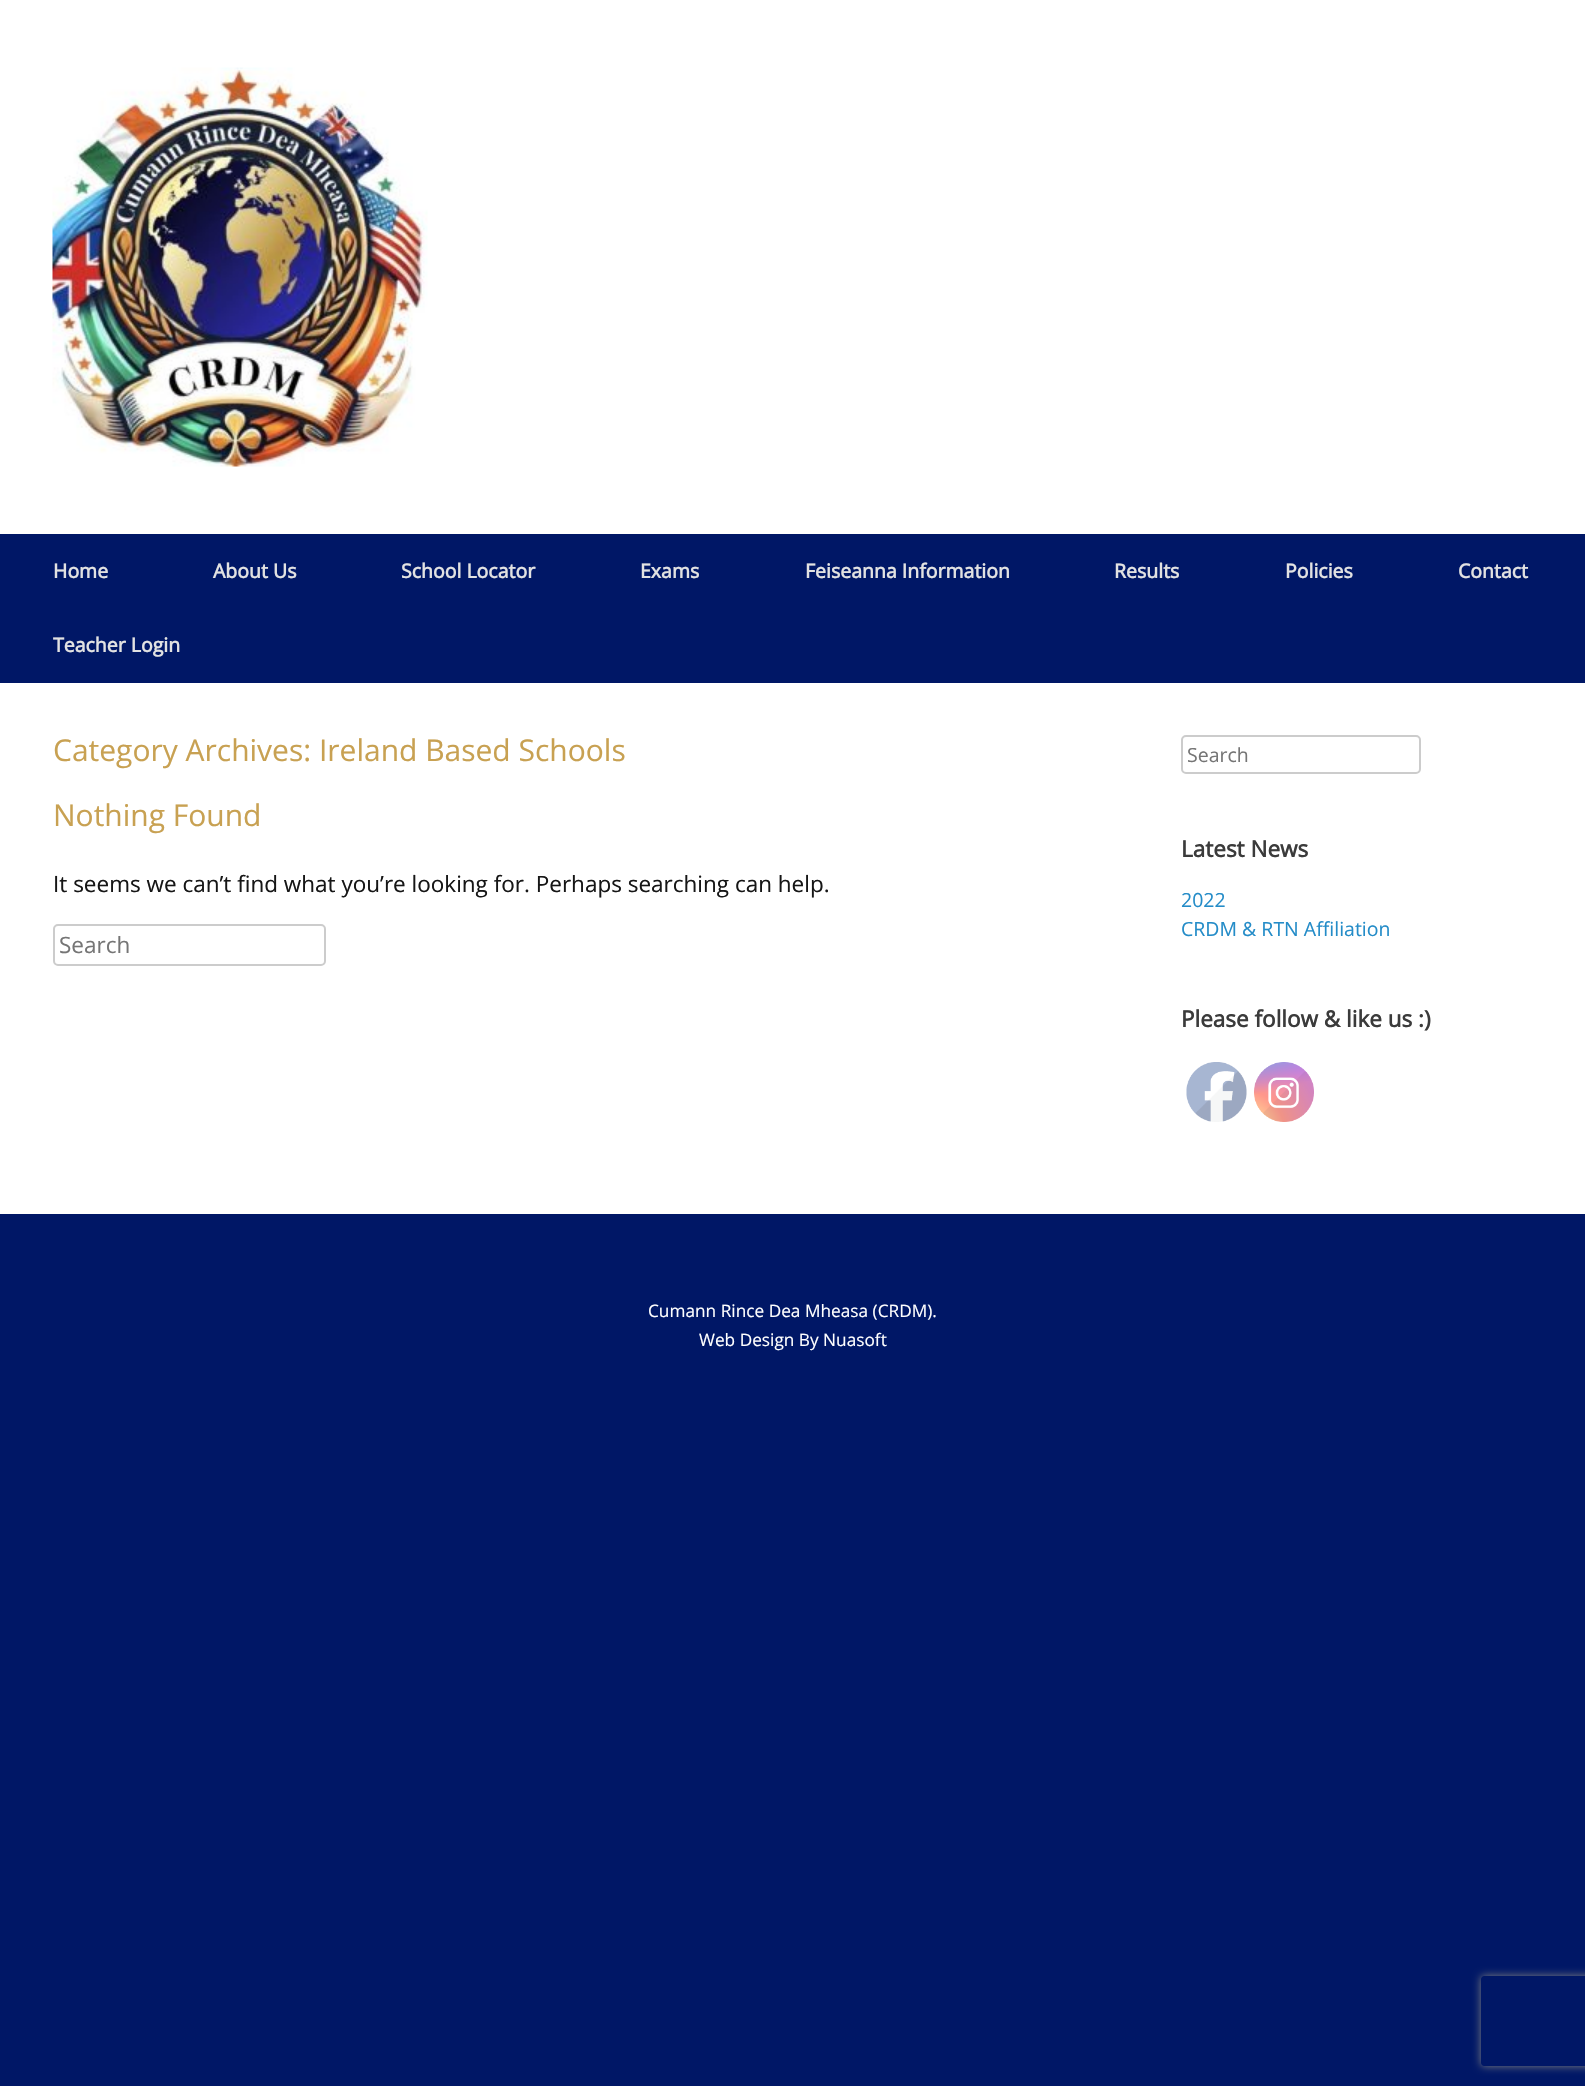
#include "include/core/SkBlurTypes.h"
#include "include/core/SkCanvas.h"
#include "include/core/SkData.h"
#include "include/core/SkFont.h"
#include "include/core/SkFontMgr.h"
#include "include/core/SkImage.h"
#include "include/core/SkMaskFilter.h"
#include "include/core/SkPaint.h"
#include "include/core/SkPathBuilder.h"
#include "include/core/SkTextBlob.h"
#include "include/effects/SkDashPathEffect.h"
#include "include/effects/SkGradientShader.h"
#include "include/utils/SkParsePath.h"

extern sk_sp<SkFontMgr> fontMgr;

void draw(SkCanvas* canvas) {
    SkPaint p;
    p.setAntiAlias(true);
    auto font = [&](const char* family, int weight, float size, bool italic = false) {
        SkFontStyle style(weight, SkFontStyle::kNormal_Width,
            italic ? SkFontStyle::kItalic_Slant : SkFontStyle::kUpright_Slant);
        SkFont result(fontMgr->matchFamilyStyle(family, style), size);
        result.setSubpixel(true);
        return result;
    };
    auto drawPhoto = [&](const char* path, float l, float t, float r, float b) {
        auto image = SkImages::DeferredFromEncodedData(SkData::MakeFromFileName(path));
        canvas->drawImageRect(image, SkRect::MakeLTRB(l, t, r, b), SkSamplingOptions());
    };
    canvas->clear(0xFF001766);
    p.setColor(0xFFFFFFFF);
    canvas->drawRect(SkRect::MakeLTRB(0, 0, 1585, 534), p);
    drawPhoto("media/1.png", 52, 67, 428, 467);
    auto font1 = font("Open Sans", 700, 19.5f);
    p.setColor(0xFFE2E2E2);
    {
        const struct { const char* s; float x, y; } items[] = {
            {"Home", 53, 578},
            {"About Us", 213, 578},
            {"School Locator", 401, 578},
            {"Exams", 640, 578},
            {"Feiseanna Information", 805, 578},
            {"Results", 1114, 578},
            {"Policies", 1285, 578},
            {"Contact", 1458, 578},
            {"Teacher Login", 53, 652},
        };
        for (auto [s, x, y] : items) {
            canvas->drawString(s, x, y, font1, p);
        }
    }
    p.setColor(0xFFFFFFFF);
    canvas->drawRect(SkRect::MakeLTRB(0, 683, 1585, 1214), p);
    auto font2 = font("Open Sans", 400, 30);
    p.setColor(0xFFC8A152);
    canvas->drawString("Category Archives: Ireland Based Schools", 53, 761, font2, p);
    canvas->drawString("Nothing Found", 53, 826, font2, p);
    auto font3 = font("Open Sans", 400, 22.5f);
    p.setColor(0xFF161616);
    canvas->drawString("It seems we can’t find what you’re looking for. Perhaps searching can help.", 53, 892, font3, p);
    p.setStyle(SkPaint::kStroke_Style);
    p.setStrokeWidth(2);
    p.setColor(0xFFCCCCCC);
    canvas->drawRoundRect(SkRect::MakeLTRB(54, 925, 325, 965), 4, 4, p);
    p.setStyle(SkPaint::kFill_Style);
    p.setColor(0xFF757575);
    canvas->drawString("Search", 59, 953, font3, p);
    p.setStyle(SkPaint::kStroke_Style);
    p.setColor(0xFFCCCCCC);
    canvas->drawRoundRect(SkRect::MakeLTRB(1182, 736, 1420, 773), 4, 4, p);
    auto font4 = font("Open Sans", 400, 19.5f);
    p.setStyle(SkPaint::kFill_Style);
    p.setColor(0xFF757575);
    canvas->drawString("Search", 1187, 762, font4, p);
    auto font5 = font("Open Sans", 700, 22.5f);
    p.setColor(0xFF3B3B3B);
    canvas->drawString("Latest News", 1181, 857, font5, p);
    p.setColor(0xFF248CC8);
    canvas->drawString("2022", 1181, 907, font4, p);
    canvas->drawString("CRDM & RTN Affiliation", 1181, 936, font4, p);
    p.setColor(0xFF3B3B3B);
    canvas->drawString("Please follow & like us :)", 1181, 1027, font5, p);
    drawPhoto("media/2.png", 1186, 1062, 1247, 1122);
    drawPhoto("media/3.png", 1254, 1062, 1314, 1122);
    auto font6 = font("Open Sans", 400, 17.25f);
    p.setColor(0xFFFFFFFF);
    canvas->drawString("Cumann Rince Dea Mheasa (CRDM).", 648, 1317, font6, p);
    canvas->drawString("Web Design By Nuasoft", 699, 1346, font6, p);
    canvas->save();
    canvas->clipPath(SkPathBuilder(SkPathFillType::kEvenOdd).moveTo(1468, 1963).lineTo(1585, 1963).lineTo(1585, 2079).lineTo(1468, 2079).close().moveTo(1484, 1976).lineTo(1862, 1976).cubicTo(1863.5f, 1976, 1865, 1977.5f, 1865, 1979).lineTo(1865, 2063).cubicTo(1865, 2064.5f, 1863.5f, 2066, 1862, 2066).lineTo(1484, 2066).cubicTo(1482.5f, 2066, 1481, 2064.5f, 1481, 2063).lineTo(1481, 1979).cubicTo(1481, 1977.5f, 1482.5f, 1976, 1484, 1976).close().detach(), true);
    p.setColor(0xFF808080);
    p.setMaskFilter(SkMaskFilter::MakeBlur(kNormal_SkBlurStyle, 4));
    canvas->drawRoundRect(SkRect::MakeLTRB(1481, 1976, 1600, 2066), 3, 3, p);
    p.setMaskFilter(nullptr);
    canvas->restore();
}
